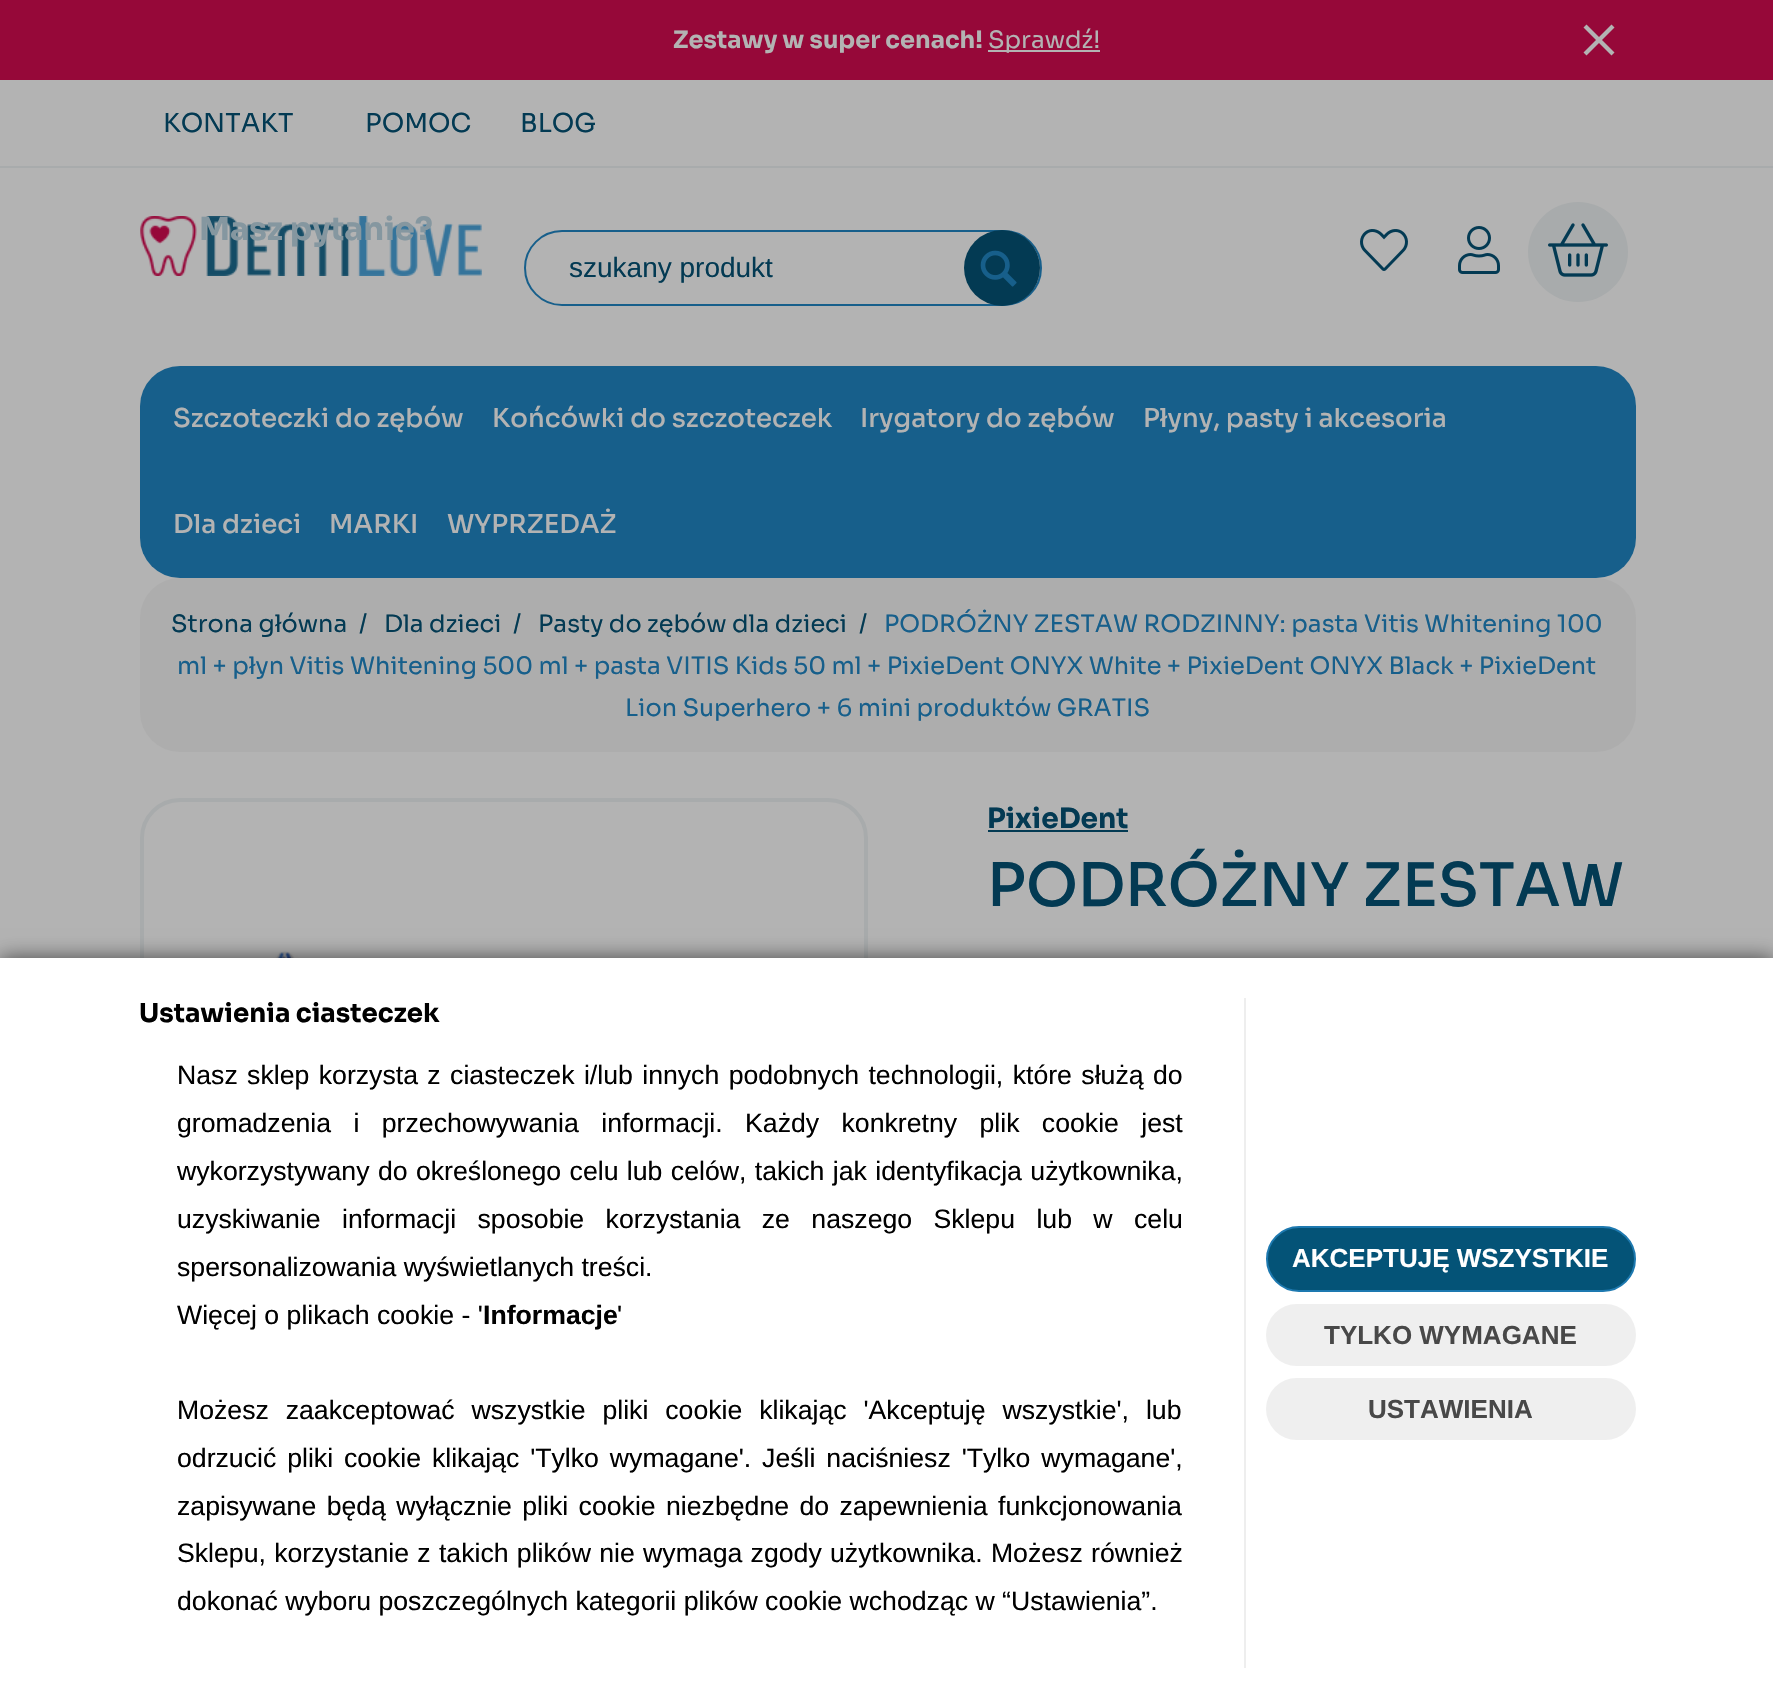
#include "include/core/SkBlurTypes.h"
#include "include/core/SkCanvas.h"
#include "include/core/SkData.h"
#include "include/core/SkFont.h"
#include "include/core/SkFontMgr.h"
#include "include/core/SkImage.h"
#include "include/core/SkMaskFilter.h"
#include "include/core/SkPaint.h"
#include "include/core/SkPathBuilder.h"
#include "include/core/SkTextBlob.h"
#include "include/effects/SkDashPathEffect.h"
#include "include/effects/SkGradientShader.h"
#include "include/utils/SkParsePath.h"

extern sk_sp<SkFontMgr> fontMgr;

void draw(SkCanvas* canvas) {
    SkPaint p;
    p.setAntiAlias(true);
    auto font = [&](const char* family, int weight, float size, bool italic = false) {
        SkFontStyle style(weight, SkFontStyle::kNormal_Width,
            italic ? SkFontStyle::kItalic_Slant : SkFontStyle::kUpright_Slant);
        SkFont result(fontMgr->matchFamilyStyle(family, style), size);
        result.setSubpixel(true);
        return result;
    };
    auto drawTracked = [&](const char* s, float x, float y, const SkFont& font, const SkPaint& ink, float letter, float word) {
        std::vector<SkGlyphID> glyphs(font.countText(s, strlen(s), SkTextEncoding::kUTF8));
        std::vector<float> xs(glyphs.size());
        font.textToGlyphs(s, strlen(s), SkTextEncoding::kUTF8, glyphs);
        font.getXPos(glyphs, xs, x);
        float extra = 0;
        for (size_t i = 0; i < glyphs.size(); i++) {
            xs[i] += extra;
            extra += letter + word * (glyphs[i] == font.unicharToGlyph(' '));
        }
        canvas->drawTextBlob(SkTextBlob::MakeFromPosHGlyphs(glyphs, xs, y, font), 0, 0, ink);
    };
    auto drawPhoto = [&](const char* path, float l, float t, float r, float b) {
        auto image = SkImages::DeferredFromEncodedData(SkData::MakeFromFileName(path));
        canvas->drawImageRect(image, SkRect::MakeLTRB(l, t, r, b), SkSamplingOptions());
    };
    canvas->clear(0xFFB3B3B3);
    p.setColor(0xFF960839);
    canvas->drawRect(SkRect::MakeLTRB(0, 0, 1773, 80), p);
    auto font1 = font("Sora", 700, 24);
    p.setColor(0xFFB3B3B3);
    canvas->drawString("Zestawy w super cenach!", 673, 48, font1, p);
    canvas->drawRect(SkRect::MakeLTRB(988, 50, 1100, 52), p);
    auto font2 = font("Sora", 400, 24);
    canvas->drawString("Sprawdź!", 988, 48, font2, p);
    canvas->drawPath(SkPathBuilder().moveTo(1586.5f, 24.5f).lineTo(1614.5f, 52.5f).lineTo(1611.5f, 55.5f).lineTo(1583.5f, 27.5f).close().detach(), p);
    canvas->drawPath(SkPathBuilder().moveTo(1611.5f, 24.5f).lineTo(1614.5f, 27.5f).lineTo(1586.5f, 55.5f).lineTo(1583.5f, 52.5f).close().detach(), p);
    p.setColor(0xFFA8ABAC);
    canvas->drawRect(SkRect::MakeLTRB(0, 166, 1773, 168), p);
    auto font3 = font("Sora", 400, 26);
    p.setColor(0xFF033A53);
    canvas->drawString("KONTAKT", 163, 132, font3, p);
    drawPhoto("media/1.png", 140, 216, 482, 276);
    auto font4 = font("Sora", 700, 32);
    p.setColor(0xFF8597A0);
    canvas->drawString("Masz pytanie?", 199, 240, font4, p);
    p.setColor(0xFF033A53);
    canvas->drawString("POMOC", 365, 132, font3, p);
    canvas->drawString("BLOG", 520, 132, font3, p);
    p.setStyle(SkPaint::kStroke_Style);
    p.setStrokeWidth(2);
    p.setColor(0xFF175F8B);
    canvas->drawRoundRect(SkRect::MakeLTRB(525, 231, 1041, 305), 37, 37, p);
    auto font5 = font("Liberation Sans", 400, 28);
    p.setStyle(SkPaint::kFill_Style);
    p.setColor(0xFF033A53);
    canvas->drawString("szukany produkt", 569, 277, font5, p);
    canvas->drawCircle(1002, 268, 38, p);
    drawPhoto("media/2.png", 980, 250, 1017, 287);
    drawPhoto("media/3.png", 1360, 229, 1408, 271);
    drawPhoto("media/4.png", 1458, 226, 1500, 274);
    p.setColor(0xFFA8ABAC);
    canvas->drawCircle(1578, 252, 50, p);
    drawPhoto("media/5.png", 1548, 223, 1608, 277);
    p.setColor(0xFF175F8B);
    canvas->drawRoundRect(SkRect::MakeLTRB(140, 366, 1636, 578), 40, 40, p);
    auto font6 = font("Sora", 500, 26);
    p.setColor(0xFFB3B3B3);
    {
        const struct { const char* s; float x, y; } items[] = {
            {"Szczoteczki do zębów", 173, 427},
            {"Końcówki do szczoteczek", 492, 427},
            {"Irygatory do zębów", 860, 427},
            {"Płyny, pasty i akcesoria", 1143, 427},
            {"Dla dzieci", 173, 533},
            {"MARKI", 329, 533},
            {"WYPRZEDAŻ", 447, 533},
        };
        for (auto [s, x, y] : items) {
            canvas->drawString(s, x, y, font6, p);
        }
    }
    p.setColor(0xFFADADAD);
    canvas->drawRoundRect(SkRect::MakeLTRB(140, 578, 1636, 752), 40, 40, p);
    p.setColor(0xFF033A53);
    {
        const struct { const char* s; float x, y; } items[] = {
            {"Strona główna", 171, 632},
            {"/", 359, 632},
            {"Dla dzieci", 384, 632},
            {"/", 513, 632},
            {"Pasty do zębów dla dzieci", 538, 632},
            {"/", 859, 632},
        };
        for (auto [s, x, y] : items) {
            canvas->drawString(s, x, y, font2, p);
        }
    }
    p.setColor(0xFF175F8B);
    {
        const struct { const char* s; float x, y; } items[] = {
            {"PODRÓŻNY ZESTAW RODZINNY: pasta Vitis Whitening 100", 884, 632},
            {"ml + płyn Vitis Whitening 500 ml + pasta VITIS Kids 50 ml + PixieDent ONYX White + PixieDent ONYX Black + PixieDent", 177, 674},
            {"Lion Superhero + 6 mini produktów GRATIS", 625, 716},
        };
        for (auto [s, x, y] : items) {
            canvas->drawString(s, x, y, font2, p);
        }
    }
    p.setStyle(SkPaint::kStroke_Style);
    p.setStrokeWidth(4);
    p.setColor(0xFFA8ABAC);
    canvas->drawRoundRect(SkRect::MakeLTRB(142, 800, 866, 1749), 38, 38, p);
    drawPhoto("media/6.png", 174, 951, 838, 958);
    auto font7 = font("Sora", 700, 28);
    p.setStyle(SkPaint::kFill_Style);
    p.setColor(0xFF033A53);
    canvas->drawString("PixieDent", 987, 828, font7, p);
    canvas->drawRect(SkRect::MakeLTRB(988, 830, 1128, 832), p);
    auto font8 = font("Sora", 500, 60);
    canvas->drawString("PODRÓŻNY ZESTAW", 987, 906, font8, p);
    p.setColor(0x99000000);
    p.setMaskFilter(SkMaskFilter::MakeBlur(kNormal_SkBlurStyle, 10));
    canvas->drawRect(SkRect::MakeLTRB(0, 958, 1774, 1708), p);
    p.setMaskFilter(nullptr);
    p.setColor(0xFFFFFFFF);
    canvas->drawRect(SkRect::MakeLTRB(0, 958, 1773, 1707), p);
    p.setColor(0xFFEEEEEE);
    canvas->drawRect(SkRect::MakeLTRB(1244, 998, 1246, 1668), p);
    auto font9 = font("Sora", 700, 26);
    p.setColor(0xFF000000);
    canvas->drawString("Ustawienia ciasteczek", 139, 1022, font9, p);
    auto font10 = font("Liberation Sans", 400, 26.65f);
    drawTracked("Nasz sklep korzysta z ciasteczek i/lub innych podobnych technologii, które służą do", 177, 1084, font10, p, 0, 2);
    drawTracked("gromadzenia i przechowywania informacji. Każdy konkretny plik cookie jest", 177, 1132, font10, p, 0, 15);
    drawTracked("wykorzystywany do określonego celu lub celów, takich jak identyfikacja użytkownika,", 177, 1180, font10, p, 0, 1);
    drawTracked("uzyskiwanie informacji sposobie korzystania ze naszego Sklepu lub w celu", 177, 1228, font10, p, 0, 14);
    canvas->drawString("spersonalizowania wyświetlanych treści.", 177, 1276, font10, p);
    canvas->drawString("Więcej o plikach cookie - '", 177, 1324, font10, p);
    auto font11 = font("Liberation Sans", 700, 26.65f);
    canvas->drawString("Informacje", 483, 1324, font11, p);
    canvas->drawString("'", 617, 1324, font10, p);
    drawTracked("Możesz zaakceptować wszystkie pliki cookie klikając 'Akceptuję wszystkie', lub", 177, 1419, font10, p, 0, 9.5f);
    drawTracked("odrzucić pliki cookie klikając 'Tylko wymagane'. Jeśli naciśniesz 'Tylko wymagane',", 177, 1467, font10, p, 0, 3.5f);
    drawTracked("zapisywane będą wyłącznie pliki cookie niezbędne do zapewnienia funkcjonowania", 177, 1515, font10, p, 0, 3);
    drawTracked("Sklepu, korzystanie z takich plików nie wymaga zgody użytkownika. Możesz również", 177, 1562, font10, p, 0, 0.9f);
    canvas->drawString("dokonać wyboru poszczególnych kategorii plików cookie wchodząc w “Ustawienia”.", 177, 1610, font10, p);
    p.setColor(0xFF045377);
    canvas->drawRoundRect(SkRect::MakeLTRB(1267, 1227, 1635, 1291), 32, 32, p);
    p.setStyle(SkPaint::kStroke_Style);
    p.setStrokeWidth(2);
    p.setColor(0xFF1D79B0);
    canvas->drawRoundRect(SkRect::MakeLTRB(1267, 1227, 1635, 1291), 32, 32, p);
    auto font12 = font("Liberation Sans", 700, 26);
    p.setStyle(SkPaint::kFill_Style);
    p.setColor(0xFFFFFFFF);
    canvas->drawString("AKCEPTUJĘ WSZYSTKIE", 1292, 1267, font12, p);
    p.setColor(0xFFEFEFEF);
    canvas->drawRoundRect(SkRect::MakeLTRB(1266, 1304, 1636, 1366), 31, 31, p);
    p.setColor(0xFF484848);
    canvas->drawString("TYLKO WYMAGANE", 1324, 1344, font12, p);
    p.setColor(0xFFEFEFEF);
    canvas->drawRoundRect(SkRect::MakeLTRB(1266, 1378, 1636, 1440), 31, 31, p);
    p.setColor(0xFF484848);
    canvas->drawString("USTAWIENIA", 1368, 1418, font12, p);
}
